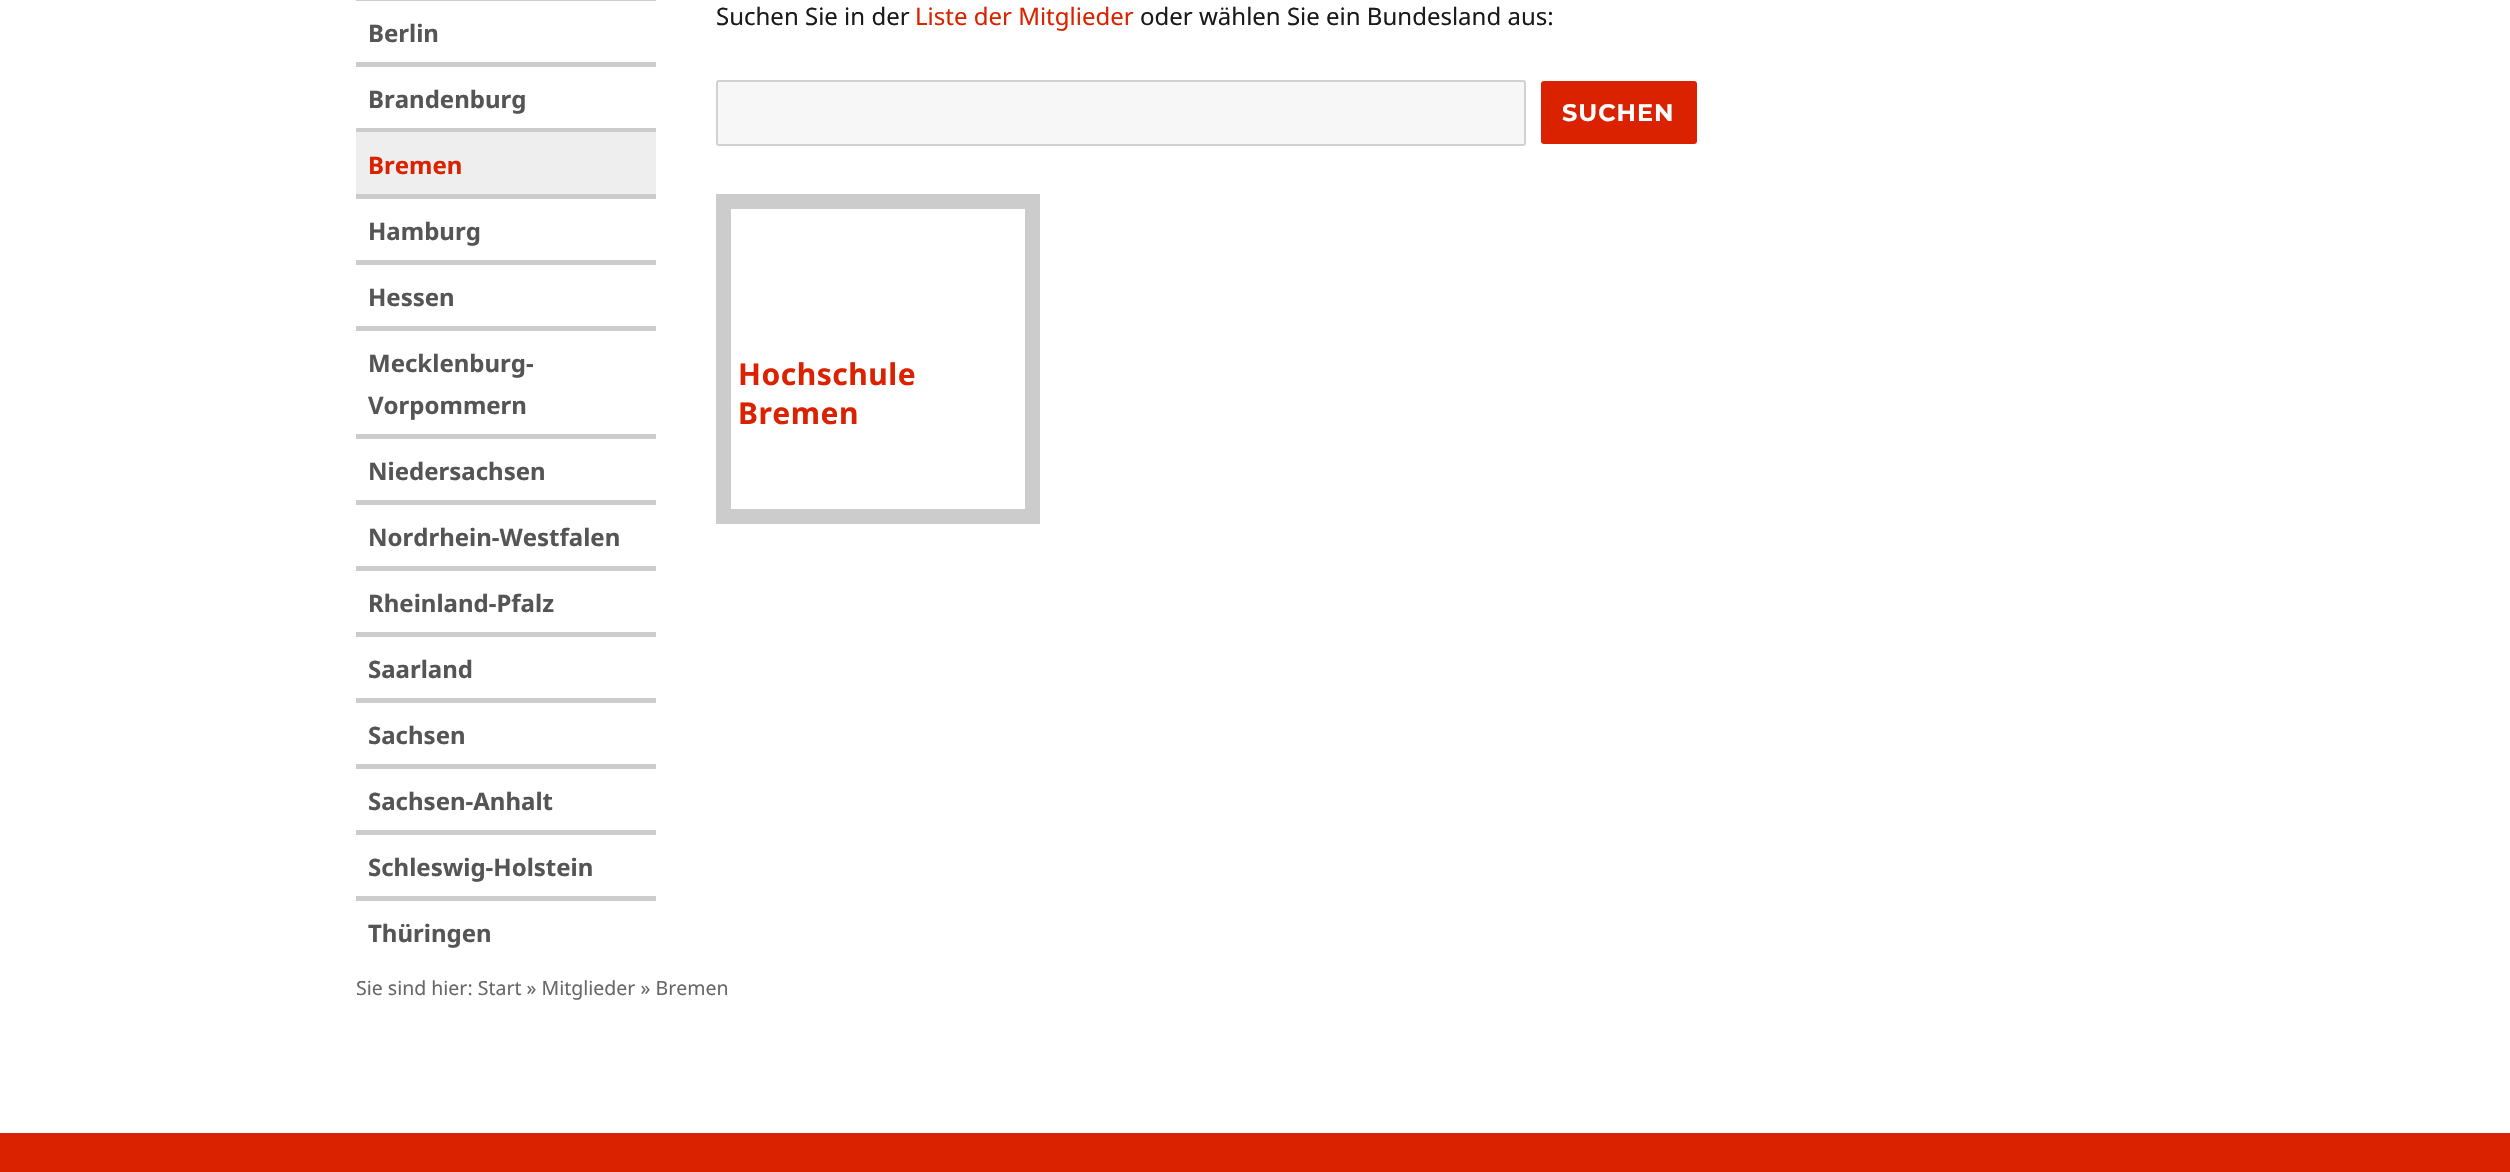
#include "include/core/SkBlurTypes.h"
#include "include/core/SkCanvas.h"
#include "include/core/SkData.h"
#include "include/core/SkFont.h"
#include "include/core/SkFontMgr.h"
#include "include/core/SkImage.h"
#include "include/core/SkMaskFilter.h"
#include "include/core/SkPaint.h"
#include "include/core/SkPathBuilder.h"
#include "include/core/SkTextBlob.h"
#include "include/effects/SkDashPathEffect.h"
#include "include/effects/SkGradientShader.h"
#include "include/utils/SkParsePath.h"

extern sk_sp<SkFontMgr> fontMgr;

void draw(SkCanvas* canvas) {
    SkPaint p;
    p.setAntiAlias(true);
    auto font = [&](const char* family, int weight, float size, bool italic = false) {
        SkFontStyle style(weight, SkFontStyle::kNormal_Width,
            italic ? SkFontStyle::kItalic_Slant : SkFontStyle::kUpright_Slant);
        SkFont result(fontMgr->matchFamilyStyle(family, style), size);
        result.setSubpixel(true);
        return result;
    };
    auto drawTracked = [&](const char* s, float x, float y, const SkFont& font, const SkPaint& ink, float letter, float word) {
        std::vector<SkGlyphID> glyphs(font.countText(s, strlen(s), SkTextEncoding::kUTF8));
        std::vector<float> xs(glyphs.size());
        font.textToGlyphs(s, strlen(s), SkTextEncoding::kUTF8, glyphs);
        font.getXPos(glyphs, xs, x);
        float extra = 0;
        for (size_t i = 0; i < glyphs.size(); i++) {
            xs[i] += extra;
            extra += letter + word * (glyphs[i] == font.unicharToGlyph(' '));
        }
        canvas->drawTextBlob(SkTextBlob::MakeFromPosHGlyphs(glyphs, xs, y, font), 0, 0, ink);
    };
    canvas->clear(0xFFFFFFFF);
    p.setColor(0xFFCCCCCC);
    canvas->drawRect(SkRect::MakeLTRB(356, 0, 656, 1), p);
    canvas->drawRect(SkRect::MakeLTRB(356, 62, 656, 67), p);
    auto font1 = font("Noto Sans", 700, 24);
    p.setColor(0xFF555555);
    canvas->drawString("Berlin", 368, 42, font1, p);
    p.setColor(0xFFCCCCCC);
    canvas->drawRect(SkRect::MakeLTRB(356, 128, 656, 132), p);
    p.setColor(0xFF555555);
    canvas->drawString("Brandenburg", 368, 108, font1, p);
    p.setColor(0xFFEEEEEE);
    canvas->drawRect(SkRect::MakeLTRB(356, 132, 656, 194), p);
    p.setColor(0xFFCCCCCC);
    canvas->drawRect(SkRect::MakeLTRB(356, 194, 656, 199), p);
    p.setColor(0xFFDB2200);
    canvas->drawString("Bremen", 368, 174, font1, p);
    p.setColor(0xFFCCCCCC);
    canvas->drawRect(SkRect::MakeLTRB(356, 260, 656, 265), p);
    p.setColor(0xFF555555);
    canvas->drawString("Hamburg", 368, 240, font1, p);
    p.setColor(0xFFCCCCCC);
    canvas->drawRect(SkRect::MakeLTRB(356, 326, 656, 331), p);
    p.setColor(0xFF555555);
    canvas->drawString("Hessen", 368, 306, font1, p);
    p.setColor(0xFFCCCCCC);
    canvas->drawRect(SkRect::MakeLTRB(356, 434, 656, 439), p);
    p.setColor(0xFF555555);
    canvas->drawString("Mecklenburg-", 368, 372, font1, p);
    canvas->drawString("Vorpommern", 368, 414, font1, p);
    p.setColor(0xFFCCCCCC);
    canvas->drawRect(SkRect::MakeLTRB(356, 500, 656, 505), p);
    p.setColor(0xFF555555);
    canvas->drawString("Niedersachsen", 368, 480, font1, p);
    p.setColor(0xFFCCCCCC);
    canvas->drawRect(SkRect::MakeLTRB(356, 566, 656, 571), p);
    p.setColor(0xFF555555);
    canvas->drawString("Nordrhein-Westfalen", 368, 546, font1, p);
    p.setColor(0xFFCCCCCC);
    canvas->drawRect(SkRect::MakeLTRB(356, 632, 656, 637), p);
    p.setColor(0xFF555555);
    canvas->drawString("Rheinland-Pfalz", 368, 612, font1, p);
    p.setColor(0xFFCCCCCC);
    canvas->drawRect(SkRect::MakeLTRB(356, 698, 656, 703), p);
    p.setColor(0xFF555555);
    canvas->drawString("Saarland", 368, 678, font1, p);
    p.setColor(0xFFCCCCCC);
    canvas->drawRect(SkRect::MakeLTRB(356, 764, 656, 769), p);
    p.setColor(0xFF555555);
    canvas->drawString("Sachsen", 368, 744, font1, p);
    p.setColor(0xFFCCCCCC);
    canvas->drawRect(SkRect::MakeLTRB(356, 830, 656, 835), p);
    p.setColor(0xFF555555);
    canvas->drawString("Sachsen-Anhalt", 368, 810, font1, p);
    p.setColor(0xFFCCCCCC);
    canvas->drawRect(SkRect::MakeLTRB(356, 896, 656, 901), p);
    p.setColor(0xFF555555);
    canvas->drawString("Schleswig-Holstein", 368, 876, font1, p);
    canvas->drawString("Thüringen", 368, 942, font1, p);
    auto font2 = font("Noto Sans", 400, 24);
    p.setColor(0xFF1A1A1A);
    canvas->drawString("Suchen Sie in der", 716, 25, font2, p);
    p.setColor(0xFFDB2200);
    canvas->drawString("Liste der Mitglieder", 915, 25, font2, p);
    p.setColor(0xFF1A1A1A);
    canvas->drawString("oder wählen Sie ein Bundesland aus:", 1140, 25, font2, p);
    p.setColor(0xFFF7F7F7);
    canvas->drawRoundRect(SkRect::MakeLTRB(717, 81, 1525, 145), 2, 2, p);
    p.setStyle(SkPaint::kStroke_Style);
    p.setStrokeWidth(2);
    p.setColor(0xFFD1D1D1);
    canvas->drawRoundRect(SkRect::MakeLTRB(717, 81, 1525, 145), 2, 2, p);
    p.setStyle(SkPaint::kFill_Style);
    p.setColor(0xFFDB2200);
    canvas->drawRoundRect(SkRect::MakeLTRB(1541, 81, 1697, 144), 3, 3, p);
    auto font3 = font("Montserrat", 700, 24);
    p.setColor(0xFFFFFFFF);
    drawTracked("SUCHEN", 1562, 121, font3, p, 1, 0);
    p.setStyle(SkPaint::kStroke_Style);
    p.setStrokeWidth(15);
    p.setColor(0xFFCCCCCC);
    canvas->drawRect(SkRect::MakeLTRB(723.5f, 201.5f, 1032.5f, 516.5f), p);
    auto font4 = font("Noto Sans", 700, 30);
    p.setStyle(SkPaint::kFill_Style);
    p.setColor(0xFFDB2200);
    drawTracked("Hochschule", 738, 385, font4, p, 0.5f, 0);
    drawTracked("Bremen", 738, 424, font4, p, 0.5f, 0);
    auto font5 = font("Noto Sans", 400, 19.5f);
    p.setColor(0xFF686868);
    canvas->drawString("Sie sind hier: Start » Mitglieder » Bremen", 356, 995, font5, p);
    p.setColor(0xFFDB2200);
    canvas->drawRect(SkRect::MakeLTRB(0, 1133, 2510, 1172), p);
}
